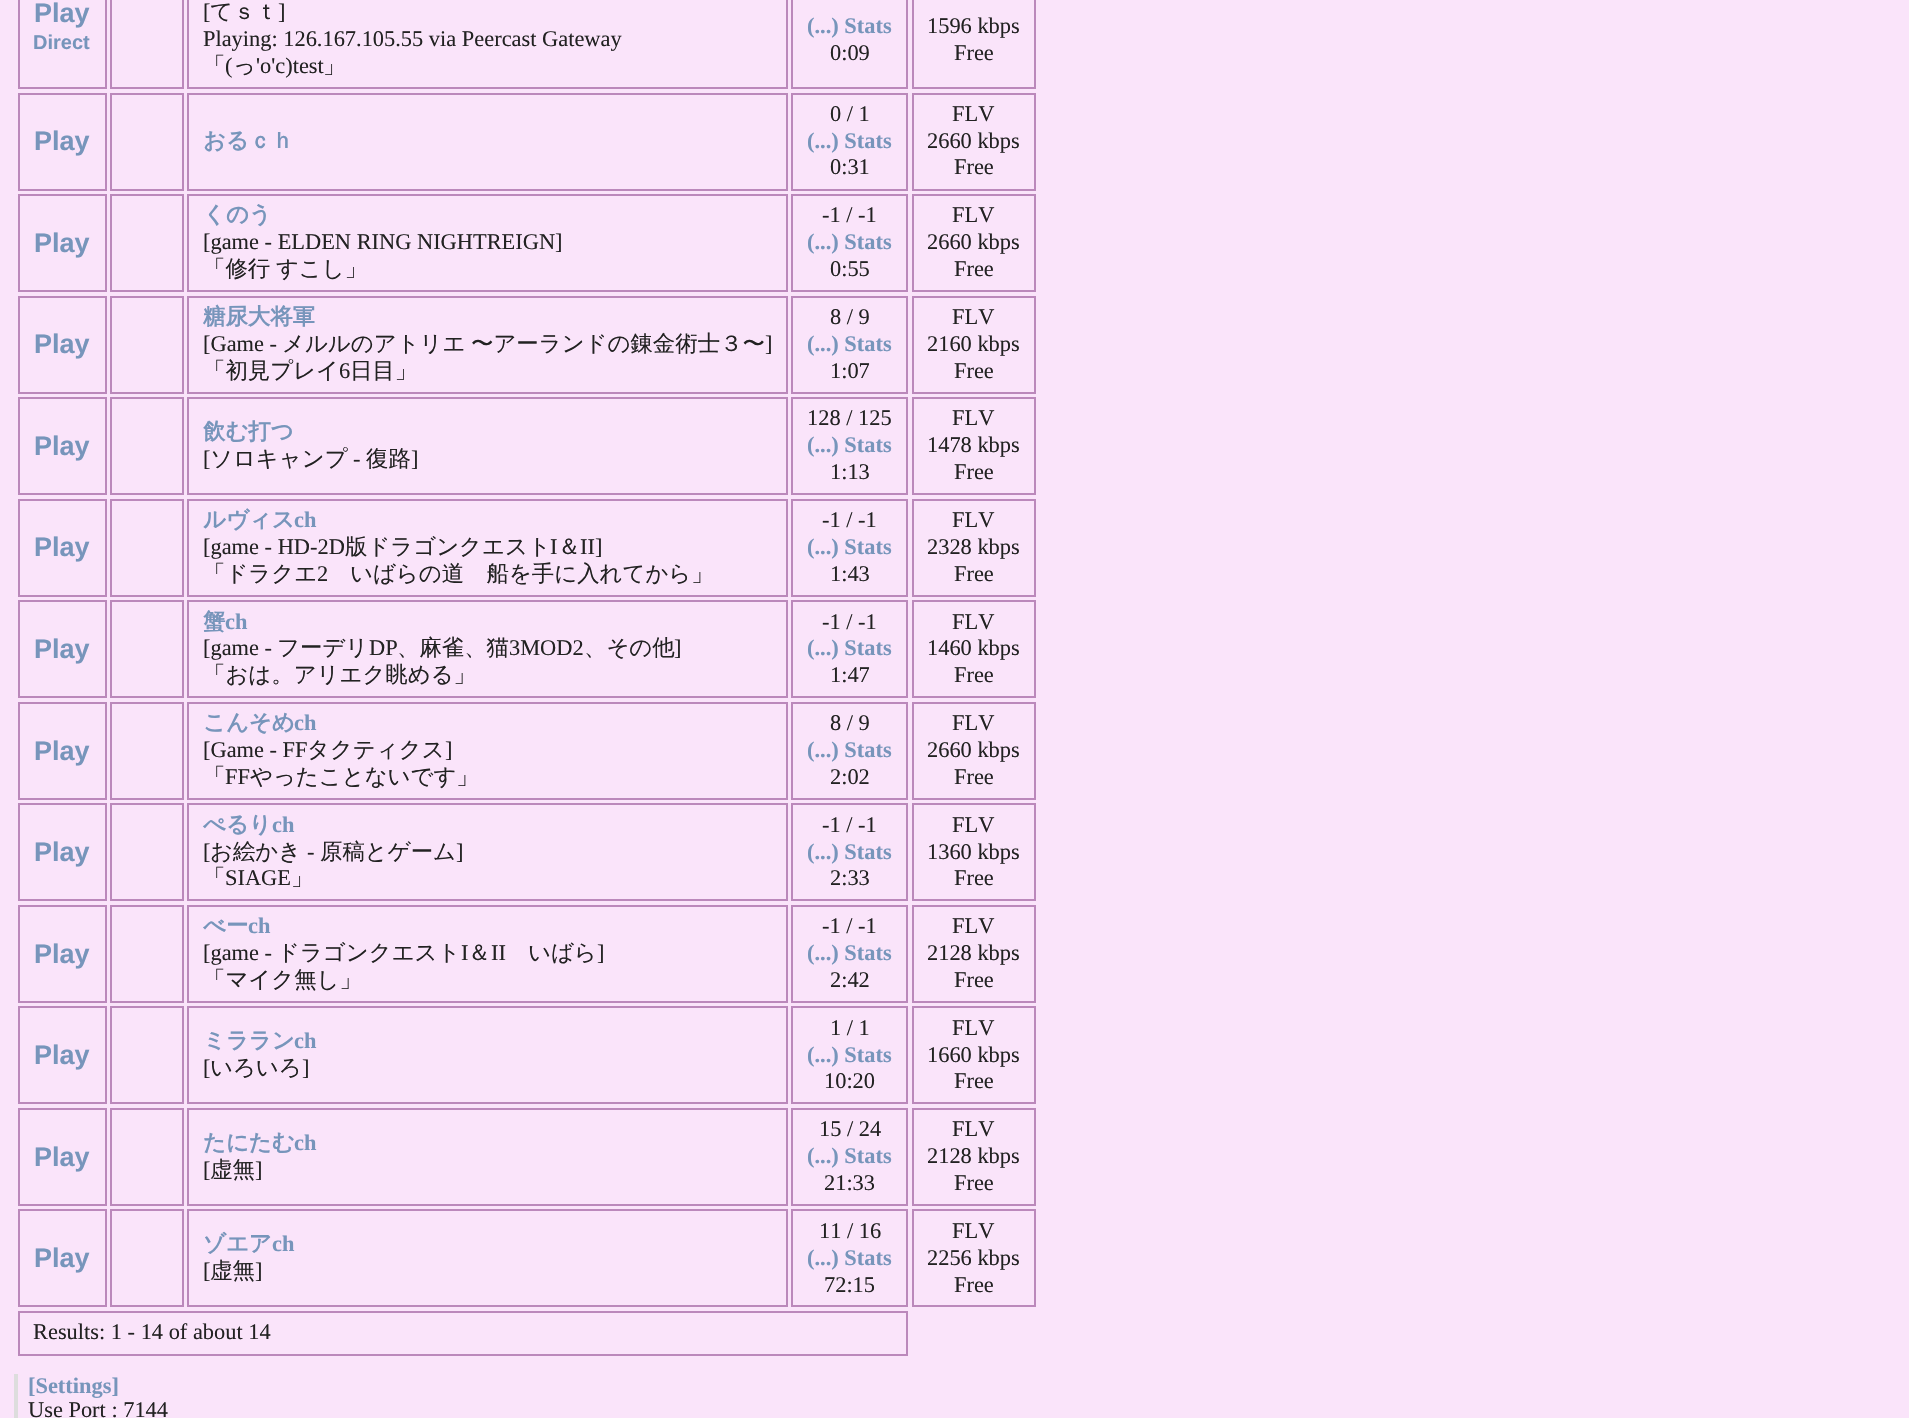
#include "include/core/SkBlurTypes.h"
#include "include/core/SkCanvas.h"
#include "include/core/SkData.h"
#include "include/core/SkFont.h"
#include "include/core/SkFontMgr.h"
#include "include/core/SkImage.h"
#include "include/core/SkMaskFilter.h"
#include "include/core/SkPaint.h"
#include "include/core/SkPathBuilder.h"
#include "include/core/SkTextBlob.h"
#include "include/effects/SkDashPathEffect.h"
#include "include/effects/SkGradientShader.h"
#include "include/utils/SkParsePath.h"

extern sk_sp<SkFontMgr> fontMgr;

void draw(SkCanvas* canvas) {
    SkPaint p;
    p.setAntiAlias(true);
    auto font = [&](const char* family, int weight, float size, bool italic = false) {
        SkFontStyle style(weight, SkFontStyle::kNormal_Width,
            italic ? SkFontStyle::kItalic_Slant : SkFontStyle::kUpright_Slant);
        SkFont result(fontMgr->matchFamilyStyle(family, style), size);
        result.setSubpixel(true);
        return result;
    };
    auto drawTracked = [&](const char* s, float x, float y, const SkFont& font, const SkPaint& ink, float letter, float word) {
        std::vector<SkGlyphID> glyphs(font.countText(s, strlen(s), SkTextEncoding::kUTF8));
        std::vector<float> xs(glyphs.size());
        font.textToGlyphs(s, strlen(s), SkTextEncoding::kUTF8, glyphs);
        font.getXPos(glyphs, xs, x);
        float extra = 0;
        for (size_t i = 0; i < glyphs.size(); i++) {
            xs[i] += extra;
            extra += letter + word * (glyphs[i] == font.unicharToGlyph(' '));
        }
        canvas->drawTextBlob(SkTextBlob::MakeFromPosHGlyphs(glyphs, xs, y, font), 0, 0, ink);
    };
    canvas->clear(0xFFFAE4FA);
    p.setStyle(SkPaint::kStroke_Style);
    p.setStrokeWidth(2);
    p.setColor(0xFFBB88BB);
    canvas->drawRect(SkRect::MakeLTRB(19, -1, 106, 88), p);
    auto font1 = font("Liberation Sans", 700, 27);
    p.setStyle(SkPaint::kFill_Style);
    p.setColor(0xFF7795BB);
    canvas->drawString("Play", 34, 22, font1, p);
    auto font2 = font("Liberation Sans", 700, 20);
    canvas->drawString("Direct", 33, 49, font2, p);
    p.setStyle(SkPaint::kStroke_Style);
    p.setColor(0xFFBB88BB);
    canvas->drawRect(SkRect::MakeLTRB(111, -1, 183, 88), p);
    canvas->drawRect(SkRect::MakeLTRB(188, -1, 787, 88), p);
    auto font3 = font("Liberation Serif", 400, 22.4f);
    p.setStyle(SkPaint::kFill_Style);
    p.setColor(0xFF222222);
    canvas->drawString("[", 203, 19, font3, p);
    auto font4 = font("WenQuanYi Zen Hei", 500, 22.4f);
    canvas->drawString("てｓｔ", 210, 19, font4, p);
    canvas->drawString("]", 278, 19, font3, p);
    canvas->drawString("Playing: 126.167.105.55 via Peercast Gateway", 203, 46, font3, p);
    canvas->drawString("「", 203, 73, font4, p);
    canvas->drawString("(", 225, 73, font3, p);
    canvas->drawString("っ", 233, 73, font4, p);
    canvas->drawString("'o'c)test", 256, 73, font3, p);
    canvas->drawString("」", 323, 73, font4, p);
    p.setStyle(SkPaint::kStroke_Style);
    p.setColor(0xFFBB88BB);
    canvas->drawRect(SkRect::MakeLTRB(792, -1, 907, 88), p);
    auto font5 = font("Liberation Serif", 700, 22.4f);
    p.setStyle(SkPaint::kFill_Style);
    p.setColor(0xFF7795BB);
    canvas->drawString("(...) Stats", 807, 33, font5, p);
    p.setColor(0xFF222222);
    canvas->drawString("0:09", 830, 60, font3, p);
    p.setStyle(SkPaint::kStroke_Style);
    p.setColor(0xFFBB88BB);
    canvas->drawRect(SkRect::MakeLTRB(913, -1, 1035, 88), p);
    p.setStyle(SkPaint::kFill_Style);
    p.setColor(0xFF222222);
    canvas->drawString("1596 kbps", 927, 33, font3, p);
    canvas->drawString("Free", 954, 60, font3, p);
    p.setStyle(SkPaint::kStroke_Style);
    p.setColor(0xFFBB88BB);
    canvas->drawRect(SkRect::MakeLTRB(19, 94, 106, 190), p);
    p.setStyle(SkPaint::kFill_Style);
    p.setColor(0xFF7795BB);
    canvas->drawString("Play", 34, 150, font1, p);
    p.setStyle(SkPaint::kStroke_Style);
    p.setColor(0xFFBB88BB);
    canvas->drawRect(SkRect::MakeLTRB(111, 94, 183, 190), p);
    canvas->drawRect(SkRect::MakeLTRB(188, 94, 787, 190), p);
    auto font6 = font("WenQuanYi Zen Hei", 700, 22.4f);
    p.setStyle(SkPaint::kFill_Style);
    p.setColor(0xFF7795BB);
    canvas->drawString("おるｃｈ", 203, 148, font6, p);
    p.setStyle(SkPaint::kStroke_Style);
    p.setColor(0xFFBB88BB);
    canvas->drawRect(SkRect::MakeLTRB(792, 94, 907, 190), p);
    p.setStyle(SkPaint::kFill_Style);
    p.setColor(0xFF222222);
    canvas->drawString("0 / 1", 830, 121, font3, p);
    p.setColor(0xFF7795BB);
    canvas->drawString("(...) Stats", 807, 148, font5, p);
    p.setColor(0xFF222222);
    canvas->drawString("0:31", 830, 174, font3, p);
    p.setStyle(SkPaint::kStroke_Style);
    p.setColor(0xFFBB88BB);
    canvas->drawRect(SkRect::MakeLTRB(913, 94, 1035, 190), p);
    p.setStyle(SkPaint::kFill_Style);
    p.setColor(0xFF222222);
    {
        const struct { const char* s; float x, y; } items[] = {
            {"FLV", 952, 121},
            {"2660 kbps", 927, 148},
            {"Free", 954, 174},
        };
        for (auto [s, x, y] : items) {
            canvas->drawString(s, x, y, font3, p);
        }
    }
    p.setStyle(SkPaint::kStroke_Style);
    p.setColor(0xFFBB88BB);
    canvas->drawRect(SkRect::MakeLTRB(19, 195, 106, 291), p);
    p.setStyle(SkPaint::kFill_Style);
    p.setColor(0xFF7795BB);
    canvas->drawString("Play", 34, 252, font1, p);
    p.setStyle(SkPaint::kStroke_Style);
    p.setColor(0xFFBB88BB);
    canvas->drawRect(SkRect::MakeLTRB(111, 195, 183, 291), p);
    canvas->drawRect(SkRect::MakeLTRB(188, 195, 787, 291), p);
    p.setStyle(SkPaint::kFill_Style);
    p.setColor(0xFF7795BB);
    canvas->drawString("くのう", 203, 222, font6, p);
    p.setColor(0xFF222222);
    canvas->drawString("[game - ELDEN RING NIGHTREIGN]", 203, 249, font3, p);
    drawTracked("「修行 すこし」", 203, 276, font4, p, 0, -1);
    p.setStyle(SkPaint::kStroke_Style);
    p.setColor(0xFFBB88BB);
    canvas->drawRect(SkRect::MakeLTRB(792, 195, 907, 291), p);
    p.setStyle(SkPaint::kFill_Style);
    p.setColor(0xFF222222);
    canvas->drawString("-1 / -1", 822, 222, font3, p);
    p.setColor(0xFF7795BB);
    canvas->drawString("(...) Stats", 807, 249, font5, p);
    p.setColor(0xFF222222);
    canvas->drawString("0:55", 830, 276, font3, p);
    p.setStyle(SkPaint::kStroke_Style);
    p.setColor(0xFFBB88BB);
    canvas->drawRect(SkRect::MakeLTRB(913, 195, 1035, 291), p);
    p.setStyle(SkPaint::kFill_Style);
    p.setColor(0xFF222222);
    {
        const struct { const char* s; float x, y; } items[] = {
            {"FLV", 952, 222},
            {"2660 kbps", 927, 249},
            {"Free", 954, 276},
        };
        for (auto [s, x, y] : items) {
            canvas->drawString(s, x, y, font3, p);
        }
    }
    p.setStyle(SkPaint::kStroke_Style);
    p.setColor(0xFFBB88BB);
    canvas->drawRect(SkRect::MakeLTRB(19, 297, 106, 393), p);
    p.setStyle(SkPaint::kFill_Style);
    p.setColor(0xFF7795BB);
    canvas->drawString("Play", 34, 353, font1, p);
    p.setStyle(SkPaint::kStroke_Style);
    p.setColor(0xFFBB88BB);
    canvas->drawRect(SkRect::MakeLTRB(111, 297, 183, 393), p);
    canvas->drawRect(SkRect::MakeLTRB(188, 297, 787, 393), p);
    p.setStyle(SkPaint::kFill_Style);
    p.setColor(0xFF7795BB);
    canvas->drawString("糖尿大将軍", 203, 324, font6, p);
    p.setColor(0xFF222222);
    canvas->drawString("[Game -", 203, 351, font3, p);
    canvas->drawString("メルルのアトリエ", 282, 351, font4, p);
    canvas->drawString("〜アーランドの錬金術士３〜", 471, 351, font4, p);
    canvas->drawString("]", 765, 351, font3, p);
    canvas->drawString("「初見プレイ", 203, 378, font4, p);
    canvas->drawString("6", 339, 378, font3, p);
    canvas->drawString("日目」", 350, 378, font4, p);
    p.setStyle(SkPaint::kStroke_Style);
    p.setColor(0xFFBB88BB);
    canvas->drawRect(SkRect::MakeLTRB(792, 297, 907, 393), p);
    p.setStyle(SkPaint::kFill_Style);
    p.setColor(0xFF222222);
    canvas->drawString("8 / 9", 830, 324, font3, p);
    p.setColor(0xFF7795BB);
    canvas->drawString("(...) Stats", 807, 351, font5, p);
    p.setColor(0xFF222222);
    canvas->drawString("1:07", 830, 378, font3, p);
    p.setStyle(SkPaint::kStroke_Style);
    p.setColor(0xFFBB88BB);
    canvas->drawRect(SkRect::MakeLTRB(913, 297, 1035, 393), p);
    p.setStyle(SkPaint::kFill_Style);
    p.setColor(0xFF222222);
    {
        const struct { const char* s; float x, y; } items[] = {
            {"FLV", 952, 324},
            {"2160 kbps", 927, 351},
            {"Free", 954, 378},
        };
        for (auto [s, x, y] : items) {
            canvas->drawString(s, x, y, font3, p);
        }
    }
    p.setStyle(SkPaint::kStroke_Style);
    p.setColor(0xFFBB88BB);
    canvas->drawRect(SkRect::MakeLTRB(19, 398, 106, 494), p);
    p.setStyle(SkPaint::kFill_Style);
    p.setColor(0xFF7795BB);
    canvas->drawString("Play", 34, 455, font1, p);
    p.setStyle(SkPaint::kStroke_Style);
    p.setColor(0xFFBB88BB);
    canvas->drawRect(SkRect::MakeLTRB(111, 398, 183, 494), p);
    canvas->drawRect(SkRect::MakeLTRB(188, 398, 787, 494), p);
    p.setStyle(SkPaint::kFill_Style);
    p.setColor(0xFF7795BB);
    canvas->drawString("飲む打つ", 203, 439, font6, p);
    p.setColor(0xFF222222);
    canvas->drawString("[", 203, 466, font3, p);
    canvas->drawString("ソロキャンプ", 210, 466, font4, p);
    canvas->drawString("-", 353, 466, font3, p);
    canvas->drawString("復路", 366, 466, font4, p);
    canvas->drawString("]", 411, 466, font3, p);
    p.setStyle(SkPaint::kStroke_Style);
    p.setColor(0xFFBB88BB);
    canvas->drawRect(SkRect::MakeLTRB(792, 398, 907, 494), p);
    p.setStyle(SkPaint::kFill_Style);
    p.setColor(0xFF222222);
    canvas->drawString("128 / 125", 807, 425, font3, p);
    p.setColor(0xFF7795BB);
    canvas->drawString("(...) Stats", 807, 452, font5, p);
    p.setColor(0xFF222222);
    canvas->drawString("1:13", 830, 479, font3, p);
    p.setStyle(SkPaint::kStroke_Style);
    p.setColor(0xFFBB88BB);
    canvas->drawRect(SkRect::MakeLTRB(913, 398, 1035, 494), p);
    p.setStyle(SkPaint::kFill_Style);
    p.setColor(0xFF222222);
    {
        const struct { const char* s; float x, y; } items[] = {
            {"FLV", 952, 425},
            {"1478 kbps", 927, 452},
            {"Free", 954, 479},
        };
        for (auto [s, x, y] : items) {
            canvas->drawString(s, x, y, font3, p);
        }
    }
    p.setStyle(SkPaint::kStroke_Style);
    p.setColor(0xFFBB88BB);
    canvas->drawRect(SkRect::MakeLTRB(19, 500, 106, 596), p);
    p.setStyle(SkPaint::kFill_Style);
    p.setColor(0xFF7795BB);
    canvas->drawString("Play", 34, 556, font1, p);
    p.setStyle(SkPaint::kStroke_Style);
    p.setColor(0xFFBB88BB);
    canvas->drawRect(SkRect::MakeLTRB(111, 500, 183, 596), p);
    canvas->drawRect(SkRect::MakeLTRB(188, 500, 787, 596), p);
    p.setStyle(SkPaint::kFill_Style);
    p.setColor(0xFF7795BB);
    canvas->drawString("ルヴィス", 203, 527, font6, p);
    canvas->drawString("ch", 294, 527, font5, p);
    p.setColor(0xFF222222);
    canvas->drawString("[game - HD-2D", 203, 554, font3, p);
    canvas->drawString("版ドラゴンクエスト", 345, 554, font4, p);
    canvas->drawString("I", 550, 554, font3, p);
    canvas->drawString("＆", 558, 554, font4, p);
    canvas->drawString("II]", 580, 554, font3, p);
    canvas->drawString("「ドラクエ", 203, 581, font4, p);
    canvas->drawString("2", 317, 581, font3, p);
    canvas->drawString("いばらの道　船を手に入れてから」", 350, 581, font4, p);
    p.setStyle(SkPaint::kStroke_Style);
    p.setColor(0xFFBB88BB);
    canvas->drawRect(SkRect::MakeLTRB(792, 500, 907, 596), p);
    p.setStyle(SkPaint::kFill_Style);
    p.setColor(0xFF222222);
    canvas->drawString("-1 / -1", 822, 527, font3, p);
    p.setColor(0xFF7795BB);
    canvas->drawString("(...) Stats", 807, 554, font5, p);
    p.setColor(0xFF222222);
    canvas->drawString("1:43", 830, 581, font3, p);
    p.setStyle(SkPaint::kStroke_Style);
    p.setColor(0xFFBB88BB);
    canvas->drawRect(SkRect::MakeLTRB(913, 500, 1035, 596), p);
    p.setStyle(SkPaint::kFill_Style);
    p.setColor(0xFF222222);
    {
        const struct { const char* s; float x, y; } items[] = {
            {"FLV", 952, 527},
            {"2328 kbps", 927, 554},
            {"Free", 954, 581},
        };
        for (auto [s, x, y] : items) {
            canvas->drawString(s, x, y, font3, p);
        }
    }
    p.setStyle(SkPaint::kStroke_Style);
    p.setColor(0xFFBB88BB);
    canvas->drawRect(SkRect::MakeLTRB(19, 601, 106, 697), p);
    p.setStyle(SkPaint::kFill_Style);
    p.setColor(0xFF7795BB);
    canvas->drawString("Play", 34, 658, font1, p);
    p.setStyle(SkPaint::kStroke_Style);
    p.setColor(0xFFBB88BB);
    canvas->drawRect(SkRect::MakeLTRB(111, 601, 183, 697), p);
    canvas->drawRect(SkRect::MakeLTRB(188, 601, 787, 697), p);
    p.setStyle(SkPaint::kFill_Style);
    p.setColor(0xFF7795BB);
    canvas->drawString("蟹", 203, 629, font6, p);
    canvas->drawString("ch", 225, 629, font5, p);
    p.setColor(0xFF222222);
    canvas->drawString("[game -", 203, 655, font3, p);
    canvas->drawString("フーデリ", 277, 655, font4, p);
    canvas->drawString("DP", 369, 655, font3, p);
    canvas->drawString("、麻雀、猫", 397, 655, font4, p);
    canvas->drawString("3MOD2", 509, 655, font3, p);
    canvas->drawString("、その他", 584, 655, font4, p);
    canvas->drawString("]", 674, 655, font3, p);
    canvas->drawString("「おは。アリエク眺める」", 203, 682, font4, p);
    p.setStyle(SkPaint::kStroke_Style);
    p.setColor(0xFFBB88BB);
    canvas->drawRect(SkRect::MakeLTRB(792, 601, 907, 697), p);
    p.setStyle(SkPaint::kFill_Style);
    p.setColor(0xFF222222);
    canvas->drawString("-1 / -1", 822, 629, font3, p);
    p.setColor(0xFF7795BB);
    canvas->drawString("(...) Stats", 807, 655, font5, p);
    p.setColor(0xFF222222);
    canvas->drawString("1:47", 830, 682, font3, p);
    p.setStyle(SkPaint::kStroke_Style);
    p.setColor(0xFFBB88BB);
    canvas->drawRect(SkRect::MakeLTRB(913, 601, 1035, 697), p);
    p.setStyle(SkPaint::kFill_Style);
    p.setColor(0xFF222222);
    {
        const struct { const char* s; float x, y; } items[] = {
            {"FLV", 952, 629},
            {"1460 kbps", 927, 655},
            {"Free", 954, 682},
        };
        for (auto [s, x, y] : items) {
            canvas->drawString(s, x, y, font3, p);
        }
    }
    p.setStyle(SkPaint::kStroke_Style);
    p.setColor(0xFFBB88BB);
    canvas->drawRect(SkRect::MakeLTRB(19, 703, 106, 799), p);
    p.setStyle(SkPaint::kFill_Style);
    p.setColor(0xFF7795BB);
    canvas->drawString("Play", 34, 760, font1, p);
    p.setStyle(SkPaint::kStroke_Style);
    p.setColor(0xFFBB88BB);
    canvas->drawRect(SkRect::MakeLTRB(111, 703, 183, 799), p);
    canvas->drawRect(SkRect::MakeLTRB(188, 703, 787, 799), p);
    p.setStyle(SkPaint::kFill_Style);
    p.setColor(0xFF7795BB);
    canvas->drawString("こんそめ", 203, 730, font6, p);
    canvas->drawString("ch", 294, 730, font5, p);
    p.setColor(0xFF222222);
    canvas->drawString("[Game - FF", 203, 757, font3, p);
    canvas->drawString("タクティクス", 307, 757, font4, p);
    canvas->drawString("]", 445, 757, font3, p);
    canvas->drawString("「", 203, 784, font4, p);
    canvas->drawString("FF", 225, 784, font3, p);
    canvas->drawString("やったことないです」", 250, 784, font4, p);
    p.setStyle(SkPaint::kStroke_Style);
    p.setColor(0xFFBB88BB);
    canvas->drawRect(SkRect::MakeLTRB(792, 703, 907, 799), p);
    p.setStyle(SkPaint::kFill_Style);
    p.setColor(0xFF222222);
    canvas->drawString("8 / 9", 830, 730, font3, p);
    p.setColor(0xFF7795BB);
    canvas->drawString("(...) Stats", 807, 757, font5, p);
    p.setColor(0xFF222222);
    canvas->drawString("2:02", 830, 784, font3, p);
    p.setStyle(SkPaint::kStroke_Style);
    p.setColor(0xFFBB88BB);
    canvas->drawRect(SkRect::MakeLTRB(913, 703, 1035, 799), p);
    p.setStyle(SkPaint::kFill_Style);
    p.setColor(0xFF222222);
    {
        const struct { const char* s; float x, y; } items[] = {
            {"FLV", 952, 730},
            {"2660 kbps", 927, 757},
            {"Free", 954, 784},
        };
        for (auto [s, x, y] : items) {
            canvas->drawString(s, x, y, font3, p);
        }
    }
    p.setStyle(SkPaint::kStroke_Style);
    p.setColor(0xFFBB88BB);
    canvas->drawRect(SkRect::MakeLTRB(19, 804, 106, 900), p);
    p.setStyle(SkPaint::kFill_Style);
    p.setColor(0xFF7795BB);
    canvas->drawString("Play", 34, 861, font1, p);
    p.setStyle(SkPaint::kStroke_Style);
    p.setColor(0xFFBB88BB);
    canvas->drawRect(SkRect::MakeLTRB(111, 804, 183, 900), p);
    canvas->drawRect(SkRect::MakeLTRB(188, 804, 787, 900), p);
    p.setStyle(SkPaint::kFill_Style);
    p.setColor(0xFF7795BB);
    canvas->drawString("ぺるり", 203, 832, font6, p);
    canvas->drawString("ch", 272, 832, font5, p);
    p.setColor(0xFF222222);
    canvas->drawString("[", 203, 859, font3, p);
    canvas->drawString("お絵かき", 210, 859, font4, p);
    canvas->drawString("-", 307, 859, font3, p);
    canvas->drawString("原稿とゲーム", 320, 859, font4, p);
    canvas->drawString("]", 456, 859, font3, p);
    canvas->drawString("「", 203, 885, font4, p);
    canvas->drawString("SIAGE", 225, 885, font3, p);
    canvas->drawString("」", 291, 885, font4, p);
    p.setStyle(SkPaint::kStroke_Style);
    p.setColor(0xFFBB88BB);
    canvas->drawRect(SkRect::MakeLTRB(792, 804, 907, 900), p);
    p.setStyle(SkPaint::kFill_Style);
    p.setColor(0xFF222222);
    canvas->drawString("-1 / -1", 822, 832, font3, p);
    p.setColor(0xFF7795BB);
    canvas->drawString("(...) Stats", 807, 859, font5, p);
    p.setColor(0xFF222222);
    canvas->drawString("2:33", 830, 885, font3, p);
    p.setStyle(SkPaint::kStroke_Style);
    p.setColor(0xFFBB88BB);
    canvas->drawRect(SkRect::MakeLTRB(913, 804, 1035, 900), p);
    p.setStyle(SkPaint::kFill_Style);
    p.setColor(0xFF222222);
    {
        const struct { const char* s; float x, y; } items[] = {
            {"FLV", 952, 832},
            {"1360 kbps", 927, 859},
            {"Free", 954, 885},
        };
        for (auto [s, x, y] : items) {
            canvas->drawString(s, x, y, font3, p);
        }
    }
    p.setStyle(SkPaint::kStroke_Style);
    p.setColor(0xFFBB88BB);
    canvas->drawRect(SkRect::MakeLTRB(19, 906, 106, 1002), p);
    p.setStyle(SkPaint::kFill_Style);
    p.setColor(0xFF7795BB);
    canvas->drawString("Play", 34, 963, font1, p);
    p.setStyle(SkPaint::kStroke_Style);
    p.setColor(0xFFBB88BB);
    canvas->drawRect(SkRect::MakeLTRB(111, 906, 183, 1002), p);
    canvas->drawRect(SkRect::MakeLTRB(188, 906, 787, 1002), p);
    p.setStyle(SkPaint::kFill_Style);
    p.setColor(0xFF7795BB);
    canvas->drawString("べー", 203, 933, font6, p);
    canvas->drawString("ch", 248, 933, font5, p);
    p.setColor(0xFF222222);
    canvas->drawString("[game -", 203, 960, font3, p);
    canvas->drawString("ドラゴンクエスト", 277, 960, font4, p);
    canvas->drawString("I", 461, 960, font3, p);
    canvas->drawString("＆", 468, 960, font4, p);
    canvas->drawString("II", 491, 960, font3, p);
    canvas->drawString("いばら", 528, 960, font4, p);
    canvas->drawString("]", 597, 960, font3, p);
    canvas->drawString("「マイク無し」", 203, 987, font4, p);
    p.setStyle(SkPaint::kStroke_Style);
    p.setColor(0xFFBB88BB);
    canvas->drawRect(SkRect::MakeLTRB(792, 906, 907, 1002), p);
    p.setStyle(SkPaint::kFill_Style);
    p.setColor(0xFF222222);
    canvas->drawString("-1 / -1", 822, 933, font3, p);
    p.setColor(0xFF7795BB);
    canvas->drawString("(...) Stats", 807, 960, font5, p);
    p.setColor(0xFF222222);
    canvas->drawString("2:42", 830, 987, font3, p);
    p.setStyle(SkPaint::kStroke_Style);
    p.setColor(0xFFBB88BB);
    canvas->drawRect(SkRect::MakeLTRB(913, 906, 1035, 1002), p);
    p.setStyle(SkPaint::kFill_Style);
    p.setColor(0xFF222222);
    {
        const struct { const char* s; float x, y; } items[] = {
            {"FLV", 952, 933},
            {"2128 kbps", 927, 960},
            {"Free", 954, 987},
        };
        for (auto [s, x, y] : items) {
            canvas->drawString(s, x, y, font3, p);
        }
    }
    p.setStyle(SkPaint::kStroke_Style);
    p.setColor(0xFFBB88BB);
    canvas->drawRect(SkRect::MakeLTRB(19, 1007, 106, 1103), p);
    p.setStyle(SkPaint::kFill_Style);
    p.setColor(0xFF7795BB);
    canvas->drawString("Play", 34, 1064, font1, p);
    p.setStyle(SkPaint::kStroke_Style);
    p.setColor(0xFFBB88BB);
    canvas->drawRect(SkRect::MakeLTRB(111, 1007, 183, 1103), p);
    canvas->drawRect(SkRect::MakeLTRB(188, 1007, 787, 1103), p);
    p.setStyle(SkPaint::kFill_Style);
    p.setColor(0xFF7795BB);
    canvas->drawString("ミララン", 203, 1048, font6, p);
    canvas->drawString("ch", 294, 1048, font5, p);
    p.setColor(0xFF222222);
    canvas->drawString("[", 203, 1075, font3, p);
    canvas->drawString("いろいろ", 210, 1075, font4, p);
    canvas->drawString("]", 302, 1075, font3, p);
    p.setStyle(SkPaint::kStroke_Style);
    p.setColor(0xFFBB88BB);
    canvas->drawRect(SkRect::MakeLTRB(792, 1007, 907, 1103), p);
    p.setStyle(SkPaint::kFill_Style);
    p.setColor(0xFF222222);
    canvas->drawString("1 / 1", 830, 1035, font3, p);
    p.setColor(0xFF7795BB);
    canvas->drawString("(...) Stats", 807, 1062, font5, p);
    p.setColor(0xFF222222);
    canvas->drawString("10:20", 824, 1088, font3, p);
    p.setStyle(SkPaint::kStroke_Style);
    p.setColor(0xFFBB88BB);
    canvas->drawRect(SkRect::MakeLTRB(913, 1007, 1035, 1103), p);
    p.setStyle(SkPaint::kFill_Style);
    p.setColor(0xFF222222);
    {
        const struct { const char* s; float x, y; } items[] = {
            {"FLV", 952, 1035},
            {"1660 kbps", 927, 1062},
            {"Free", 954, 1088},
        };
        for (auto [s, x, y] : items) {
            canvas->drawString(s, x, y, font3, p);
        }
    }
    p.setStyle(SkPaint::kStroke_Style);
    p.setColor(0xFFBB88BB);
    canvas->drawRect(SkRect::MakeLTRB(19, 1109, 106, 1205), p);
    p.setStyle(SkPaint::kFill_Style);
    p.setColor(0xFF7795BB);
    canvas->drawString("Play", 34, 1166, font1, p);
    p.setStyle(SkPaint::kStroke_Style);
    p.setColor(0xFFBB88BB);
    canvas->drawRect(SkRect::MakeLTRB(111, 1109, 183, 1205), p);
    canvas->drawRect(SkRect::MakeLTRB(188, 1109, 787, 1205), p);
    p.setStyle(SkPaint::kFill_Style);
    p.setColor(0xFF7795BB);
    canvas->drawString("たにたむ", 203, 1150, font6, p);
    canvas->drawString("ch", 294, 1150, font5, p);
    p.setColor(0xFF222222);
    canvas->drawString("[", 203, 1177, font3, p);
    canvas->drawString("虚無", 210, 1177, font4, p);
    canvas->drawString("]", 255, 1177, font3, p);
    p.setStyle(SkPaint::kStroke_Style);
    p.setColor(0xFFBB88BB);
    canvas->drawRect(SkRect::MakeLTRB(792, 1109, 907, 1205), p);
    p.setStyle(SkPaint::kFill_Style);
    p.setColor(0xFF222222);
    canvas->drawString("15 / 24", 819, 1136, font3, p);
    p.setColor(0xFF7795BB);
    canvas->drawString("(...) Stats", 807, 1163, font5, p);
    p.setColor(0xFF222222);
    canvas->drawString("21:33", 824, 1190, font3, p);
    p.setStyle(SkPaint::kStroke_Style);
    p.setColor(0xFFBB88BB);
    canvas->drawRect(SkRect::MakeLTRB(913, 1109, 1035, 1205), p);
    p.setStyle(SkPaint::kFill_Style);
    p.setColor(0xFF222222);
    {
        const struct { const char* s; float x, y; } items[] = {
            {"FLV", 952, 1136},
            {"2128 kbps", 927, 1163},
            {"Free", 954, 1190},
        };
        for (auto [s, x, y] : items) {
            canvas->drawString(s, x, y, font3, p);
        }
    }
    p.setStyle(SkPaint::kStroke_Style);
    p.setColor(0xFFBB88BB);
    canvas->drawRect(SkRect::MakeLTRB(19, 1210, 106, 1306), p);
    p.setStyle(SkPaint::kFill_Style);
    p.setColor(0xFF7795BB);
    canvas->drawString("Play", 34, 1267, font1, p);
    p.setStyle(SkPaint::kStroke_Style);
    p.setColor(0xFFBB88BB);
    canvas->drawRect(SkRect::MakeLTRB(111, 1210, 183, 1306), p);
    canvas->drawRect(SkRect::MakeLTRB(188, 1210, 787, 1306), p);
    p.setStyle(SkPaint::kFill_Style);
    p.setColor(0xFF7795BB);
    canvas->drawString("ゾエア", 203, 1251, font6, p);
    canvas->drawString("ch", 272, 1251, font5, p);
    p.setColor(0xFF222222);
    canvas->drawString("[", 203, 1278, font3, p);
    canvas->drawString("虚無", 210, 1278, font4, p);
    canvas->drawString("]", 255, 1278, font3, p);
    p.setStyle(SkPaint::kStroke_Style);
    p.setColor(0xFFBB88BB);
    canvas->drawRect(SkRect::MakeLTRB(792, 1210, 907, 1306), p);
    p.setStyle(SkPaint::kFill_Style);
    p.setColor(0xFF222222);
    canvas->drawString("11 / 16", 819, 1238, font3, p);
    p.setColor(0xFF7795BB);
    canvas->drawString("(...) Stats", 807, 1265, font5, p);
    p.setColor(0xFF222222);
    canvas->drawString("72:15", 824, 1292, font3, p);
    p.setStyle(SkPaint::kStroke_Style);
    p.setColor(0xFFBB88BB);
    canvas->drawRect(SkRect::MakeLTRB(913, 1210, 1035, 1306), p);
    p.setStyle(SkPaint::kFill_Style);
    p.setColor(0xFF222222);
    {
        const struct { const char* s; float x, y; } items[] = {
            {"FLV", 952, 1238},
            {"2256 kbps", 927, 1265},
            {"Free", 954, 1292},
        };
        for (auto [s, x, y] : items) {
            canvas->drawString(s, x, y, font3, p);
        }
    }
    p.setStyle(SkPaint::kStroke_Style);
    p.setColor(0xFFBB88BB);
    canvas->drawRect(SkRect::MakeLTRB(19, 1312, 907, 1355), p);
    p.setStyle(SkPaint::kFill_Style);
    p.setColor(0xFF222222);
    canvas->drawString("Results: 1 - 14 of about 14", 33, 1339, font3, p);
    p.setColor(0xFFDDDDDD);
    canvas->drawRect(SkRect::MakeLTRB(14, 1374, 18, 1418), p);
    p.setColor(0xFF7795BB);
    canvas->drawString("[Settings]", 28, 1393, font5, p);
    p.setColor(0xFF222222);
    canvas->drawString("Use Port : 7144", 28, 1417, font3, p);
}
